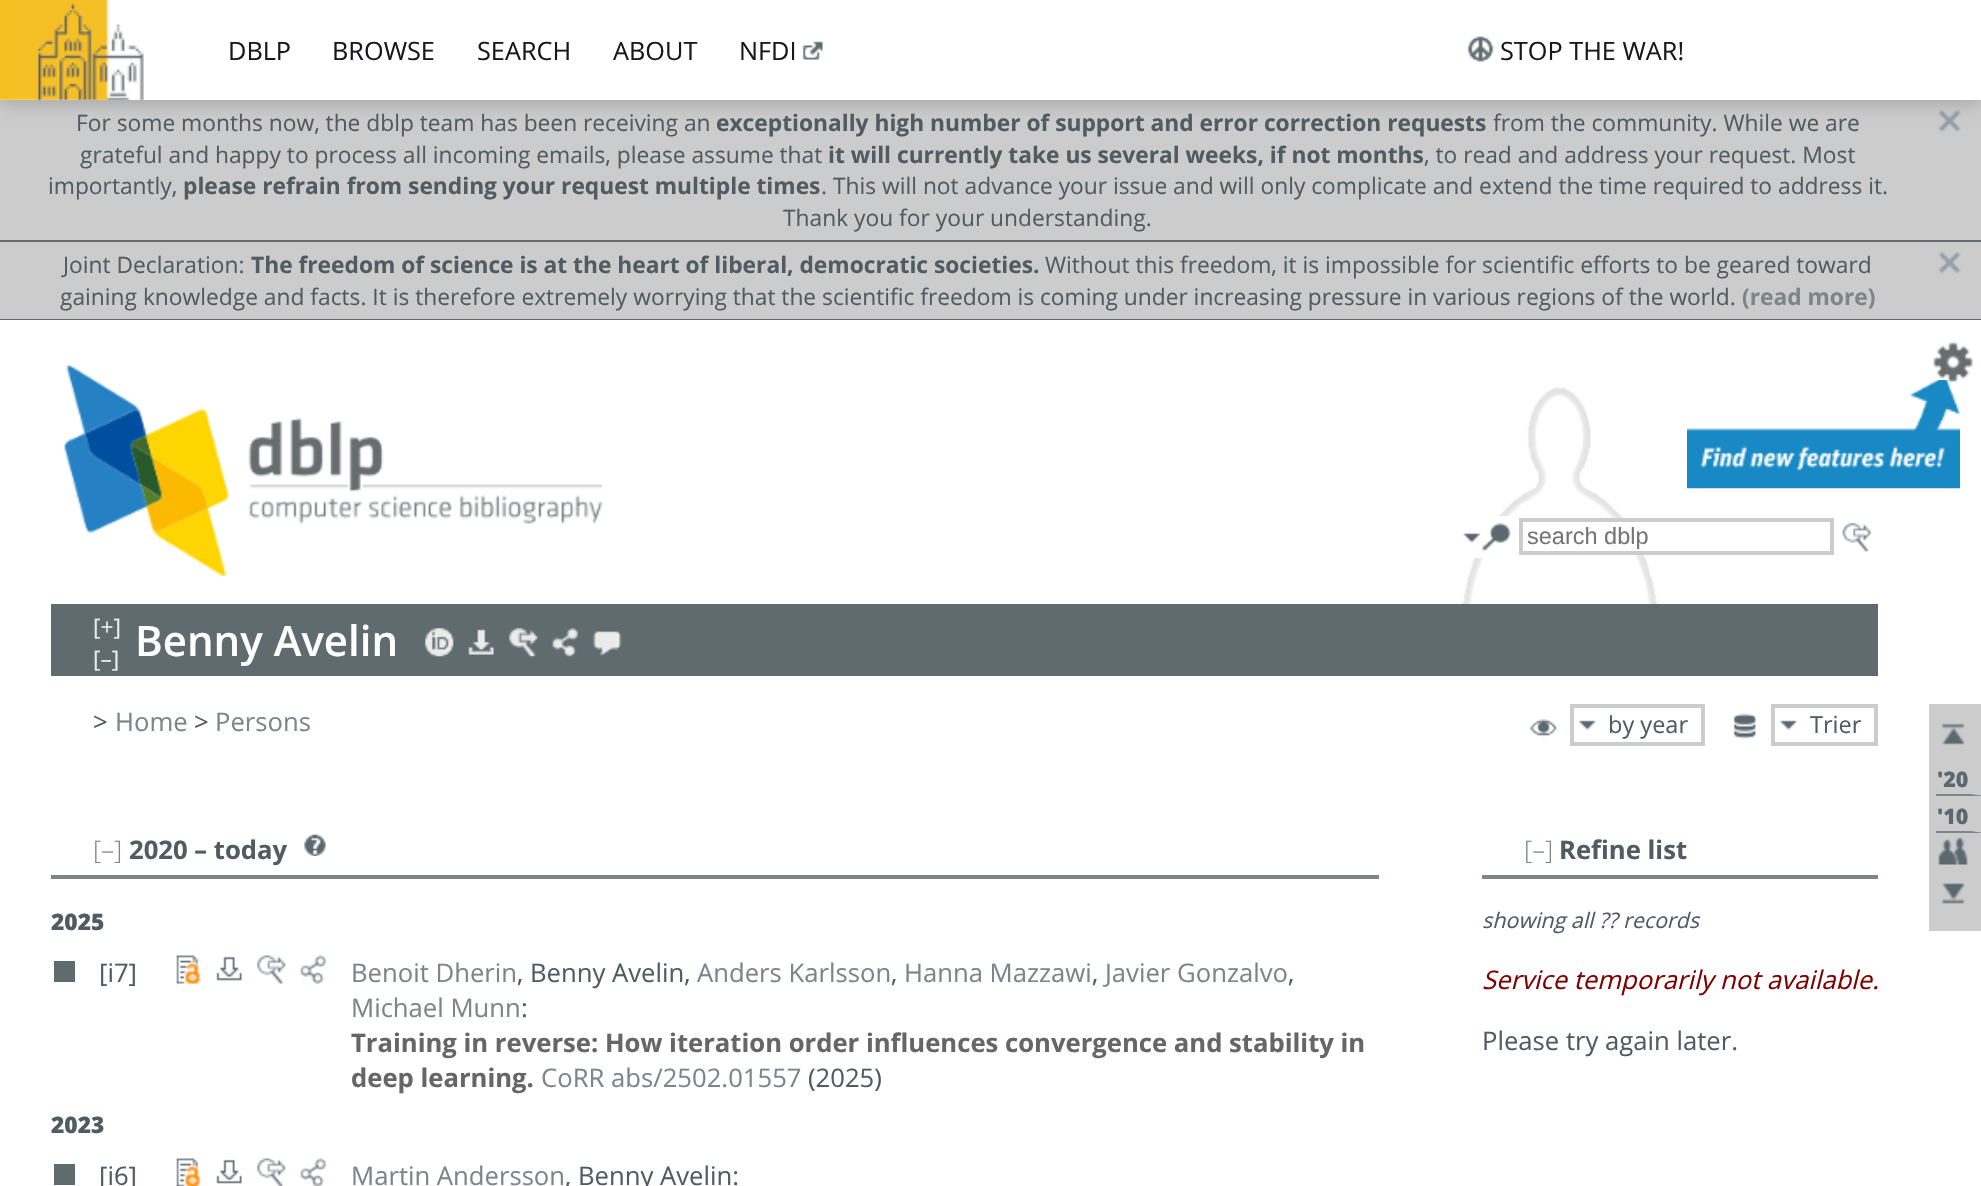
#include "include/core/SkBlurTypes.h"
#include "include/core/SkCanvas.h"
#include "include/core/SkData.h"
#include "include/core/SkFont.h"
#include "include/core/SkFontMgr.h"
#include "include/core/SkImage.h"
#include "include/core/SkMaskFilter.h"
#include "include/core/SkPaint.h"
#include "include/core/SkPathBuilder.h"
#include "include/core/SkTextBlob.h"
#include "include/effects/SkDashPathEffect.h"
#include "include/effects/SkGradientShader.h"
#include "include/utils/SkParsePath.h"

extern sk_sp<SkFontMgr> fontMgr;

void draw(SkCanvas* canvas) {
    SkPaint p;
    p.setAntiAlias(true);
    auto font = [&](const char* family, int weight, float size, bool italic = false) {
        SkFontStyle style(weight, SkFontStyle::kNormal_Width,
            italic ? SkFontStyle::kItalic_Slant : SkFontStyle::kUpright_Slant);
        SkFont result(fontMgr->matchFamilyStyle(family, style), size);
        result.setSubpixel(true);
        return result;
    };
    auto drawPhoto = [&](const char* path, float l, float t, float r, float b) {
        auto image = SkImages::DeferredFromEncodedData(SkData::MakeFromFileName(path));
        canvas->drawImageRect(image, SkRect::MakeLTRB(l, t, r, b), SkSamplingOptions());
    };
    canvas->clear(0xFFCCCCCC);
    drawPhoto("media/4.png", 1938, 110, 1961, 132);
    p.setColor(0x33000000);
    p.setMaskFilter(SkMaskFilter::MakeBlur(kNormal_SkBlurStyle, 9));
    canvas->drawRect(SkRect::MakeLTRB(0, 4, 1981, 103), p);
    p.setMaskFilter(nullptr);
    p.setColor(0xFFFFFFFF);
    canvas->drawRect(SkRect::MakeLTRB(0, 0, 1981, 100), p);
    drawPhoto("media/1.png", 0, 0, 144, 100);
    auto font1 = font("Open Sans", 400, 25.25f);
    p.setColor(0xFF16181B);
    {
        const struct { const char* s; float x, y; } items[] = {
            {"DBLP", 228, 60},
            {"BROWSE", 332, 60},
            {"SEARCH", 477, 60},
            {"ABOUT", 613, 60},
            {"NFDI", 739, 60},
        };
        for (auto [s, x, y] : items) {
            canvas->drawString(s, x, y, font1, p);
        }
    }
    drawPhoto("media/2.png", 802, 41, 823, 60);
    drawPhoto("media/3.png", 1467, 36, 1494, 62);
    canvas->drawString("STOP THE WAR!", 1500, 60, font1, p);
    p.setColor(0xFF606B70);
    canvas->drawRect(SkRect::MakeLTRB(0, 240, 1981, 242), p);
    auto font2 = font("Open Sans", 400, 22.75f);
    p.setColor(0xFF505B62);
    canvas->drawString("For some months now, the dblp team has been receiving an", 76, 131, font2, p);
    auto font3 = font("Open Sans", 700, 22.75f);
    canvas->drawString("exceptionally high number of support and error correction requests", 716, 131, font3, p);
    canvas->drawString("from the community. While we are", 1493, 131, font2, p);
    canvas->drawString("grateful and happy to process all incoming emails, please assume that", 80, 163, font2, p);
    canvas->drawString("it will currently take us several weeks, if not months", 828, 163, font3, p);
    canvas->drawString(", to read and address your request. Most", 1424, 163, font2, p);
    canvas->drawString("importantly,", 48, 194, font2, p);
    canvas->drawString("please refrain from sending your request multiple times", 183, 194, font3, p);
    canvas->drawString(". This will not advance your issue and will only complicate and extend the time required to address it.", 821, 194, font2, p);
    canvas->drawString("Thank you for your understanding.", 783, 226, font2, p);
    p.setColor(0xFF606B70);
    canvas->drawRect(SkRect::MakeLTRB(0, 319, 1981, 320), p);
    p.setColor(0xFF505B62);
    canvas->drawString("Joint Declaration:", 63, 273, font2, p);
    canvas->drawString("The freedom of science is at the heart of liberal, democratic societies.", 251, 273, font3, p);
    canvas->drawString("Without this freedom, it is impossible for scientific efforts to be geared toward", 1045, 273, font2, p);
    drawPhoto("media/5.png", 1938, 251, 1961, 274);
    canvas->drawString("gaining knowledge and facts. It is therefore extremely worrying that the scientific freedom is coming under increasing pressure in various regions of the world.", 60, 305, font2, p);
    p.setColor(0xFF7D848A);
    canvas->drawString("(read more)", 1742, 305, font3, p);
    p.setColor(0xFFFFFFFF);
    canvas->drawRect(SkRect::MakeLTRB(0, 320, 1981, 1186), p);
    drawPhoto("media/6.png", 1462, 387, 1658, 604);
    drawPhoto("media/7.png", 64, 365, 603, 576);
    drawPhoto("media/9.png", 1687, 380, 1960, 489);
    drawPhoto("media/8.png", 1933, 342, 1973, 382);
    canvas->drawRect(SkRect::MakeLTRB(1474, 516, 1510, 558), p);
    drawPhoto("media/10.png", 1462, 533, 1481, 543);
    drawPhoto("media/11.png", 1482, 523, 1511, 552);
    canvas->drawRect(SkRect::MakeLTRB(1616, 522, 1643, 551), p);
    p.setStyle(SkPaint::kStroke_Style);
    p.setStrokeWidth(4);
    p.setColor(0xFFCCCCCC);
    canvas->drawRect(SkRect::MakeLTRB(1521, 520, 1832, 553), p);
    auto font4 = font("Liberation Sans", 400, 23.5f);
    p.setStyle(SkPaint::kFill_Style);
    p.setColor(0xFF757575);
    canvas->drawString("search dblp", 1527, 544, font4, p);
    drawPhoto("media/12.png", 1842, 523, 1871, 552);
    p.setColor(0xFF606B70);
    canvas->drawRect(SkRect::MakeLTRB(51, 604, 1878, 676), p);
    p.setColor(0xFFEBEBEB);
    canvas->drawString("[+]", 93, 635, font2, p);
    canvas->drawString("[–]", 93, 667, font2, p);
    auto font5 = font("Open Sans", 600, 42);
    p.setColor(0xFFFFFFFF);
    canvas->drawString("Benny Avelin", 135, 656, font5, p);
    drawPhoto("media/13.png", 425, 628, 454, 657);
    drawPhoto("media/14.png", 468, 629, 494, 655);
    drawPhoto("media/15.png", 509, 628, 538, 657);
    drawPhoto("media/16.png", 551, 628, 579, 657);
    drawPhoto("media/17.png", 593, 631, 622, 657);
    auto font6 = font("Open Sans", 400, 25.65f);
    p.setColor(0xFF505B62);
    canvas->drawString(">", 93, 731, font6, p);
    p.setColor(0xFF7D848A);
    canvas->drawString("Home", 115, 731, font6, p);
    p.setColor(0xFF505B62);
    canvas->drawString(">", 194, 731, font6, p);
    p.setColor(0xFF7D848A);
    canvas->drawString("Persons", 215, 731, font6, p);
    drawPhoto("media/18.png", 1529, 719, 1558, 737);
    drawPhoto("media/19.png", 1578, 720, 1597, 731);
    p.setStyle(SkPaint::kStroke_Style);
    p.setColor(0xFFCCCCCC);
    canvas->drawRect(SkRect::MakeLTRB(1572, 706, 1703, 744), p);
    auto font7 = font("Open Sans", 400, 23.5f);
    p.setStyle(SkPaint::kFill_Style);
    p.setColor(0xFF505B62);
    canvas->drawString("by year", 1608, 733, font7, p);
    drawPhoto("media/20.png", 1733, 713, 1756, 739);
    drawPhoto("media/21.png", 1779, 720, 1798, 731);
    p.setStyle(SkPaint::kStroke_Style);
    p.setColor(0xFFCCCCCC);
    canvas->drawRect(SkRect::MakeLTRB(1773, 706, 1876, 744), p);
    p.setStyle(SkPaint::kFill_Style);
    p.setColor(0xFF505B62);
    canvas->drawString("Trier", 1810, 733, font7, p);
    p.setColor(0xFFCCCCCC);
    canvas->drawRect(SkRect::MakeLTRB(1929, 704, 1981, 931), p);
    drawPhoto("media/22.png", 1941, 723, 1965, 745);
    p.setColor(0xFF7D848A);
    canvas->drawPath(SkPathBuilder().moveTo(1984, 796).lineTo(1936, 796).lineTo(1936, 794).lineTo(1970, 794).close().moveTo(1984, 833).lineTo(1936, 833).lineTo(1936, 831).lineTo(1970, 831).close().detach(), p);
    auto font8 = font("Open Sans", 800, 21.4f);
    p.setColor(0xFF5B6870);
    canvas->drawString("'20", 1937, 787, font8, p);
    canvas->drawString("'10", 1937, 824, font8, p);
    drawPhoto("media/23.png", 1938, 837, 1968, 865);
    drawPhoto("media/24.png", 1941, 883, 1965, 904);
    p.setColor(0xFF7D848A);
    canvas->drawRect(SkRect::MakeLTRB(51, 875, 1379, 879), p);
    auto font9 = font("Open Sans", 300, 25.65f);
    canvas->drawString("[–]", 93, 859, font9, p);
    auto font10 = font("Open Sans", 700, 25.65f);
    p.setColor(0xFF505B62);
    canvas->drawString("2020 – today", 129, 859, font10, p);
    drawPhoto("media/25.png", 304, 834, 326, 856);
    auto font11 = font("Open Sans", 800, 22.75f);
    canvas->drawString("2025", 51, 930, font11, p);
    p.setColor(0xFF606B70);
    canvas->drawRect(SkRect::MakeLTRB(54, 961, 75, 982), p);
    p.setColor(0xFF505B62);
    canvas->drawString("[i7]", 99, 982, font6, p);
    drawPhoto("media/26.png", 176, 955, 201, 984);
    drawPhoto("media/27.png", 216, 956, 242, 981);
    drawPhoto("media/28.png", 257, 955, 286, 984);
    drawPhoto("media/29.png", 299, 955, 327, 984);
    p.setColor(0xFF7D848A);
    canvas->drawString("Benoit Dherin", 351, 982, font6, p);
    p.setColor(0xFF505B62);
    canvas->drawString(", Benny Avelin,", 517, 982, font6, p);
    p.setColor(0xFF7D848A);
    canvas->drawString("Anders Karlsson", 697, 982, font6, p);
    p.setColor(0xFF505B62);
    canvas->drawString(",", 891, 982, font6, p);
    p.setColor(0xFF7D848A);
    canvas->drawString("Hanna Mazzawi", 904, 982, font6, p);
    p.setColor(0xFF505B62);
    canvas->drawString(",", 1092, 982, font6, p);
    p.setColor(0xFF7D848A);
    canvas->drawString("Javier Gonzalvo", 1105, 982, font6, p);
    p.setColor(0xFF505B62);
    canvas->drawString(",", 1288, 982, font6, p);
    p.setColor(0xFF7D848A);
    canvas->drawString("Michael Munn", 351, 1017, font6, p);
    p.setColor(0xFF505B62);
    canvas->drawString(":", 521, 1017, font6, p);
    p.setColor(0xFF666666);
    canvas->drawString("Training in reverse: How iteration order influences convergence and stability in", 351, 1052, font10, p);
    canvas->drawString("deep learning.", 351, 1087, font10, p);
    p.setColor(0xFF7D848A);
    canvas->drawString("CoRR abs/2502.01557", 541, 1087, font6, p);
    p.setColor(0xFF505B62);
    canvas->drawString("(2025)", 808, 1087, font6, p);
    canvas->drawString("2023", 51, 1133, font11, p);
    p.setColor(0xFF606B70);
    canvas->drawRect(SkRect::MakeLTRB(54, 1164, 75, 1185), p);
    p.setColor(0xFF505B62);
    canvas->drawString("[i6]", 99, 1185, font6, p);
    drawPhoto("media/30.png", 176, 1158, 201, 1186);
    drawPhoto("media/27.png", 216, 1159, 242, 1184);
    drawPhoto("media/31.png", 257, 1158, 286, 1186);
    drawPhoto("media/32.png", 299, 1158, 327, 1186);
    p.setColor(0xFF7D848A);
    canvas->drawString("Martin Andersson", 351, 1185, font6, p);
    p.setColor(0xFF505B62);
    canvas->drawString(", Benny Avelin:", 565, 1185, font6, p);
    p.setColor(0xFF7D848A);
    canvas->drawRect(SkRect::MakeLTRB(1482, 875, 1878, 879), p);
    canvas->drawString("[–]", 1524, 859, font9, p);
    p.setColor(0xFF505B62);
    canvas->drawString("Refine list", 1559, 859, font10, p);
    auto font12 = font("Open Sans", 400, 21.4f, true);
    canvas->drawString("showing all ?\077 records", 1482, 928, font12, p);
    auto font13 = font("Open Sans", 400, 25.65f, true);
    p.setColor(0xFF800000);
    canvas->drawString("Service temporarily not available.", 1482, 989, font13, p);
    p.setColor(0xFF505B62);
    canvas->drawString("Please try again later.", 1482, 1050, font6, p);
}
